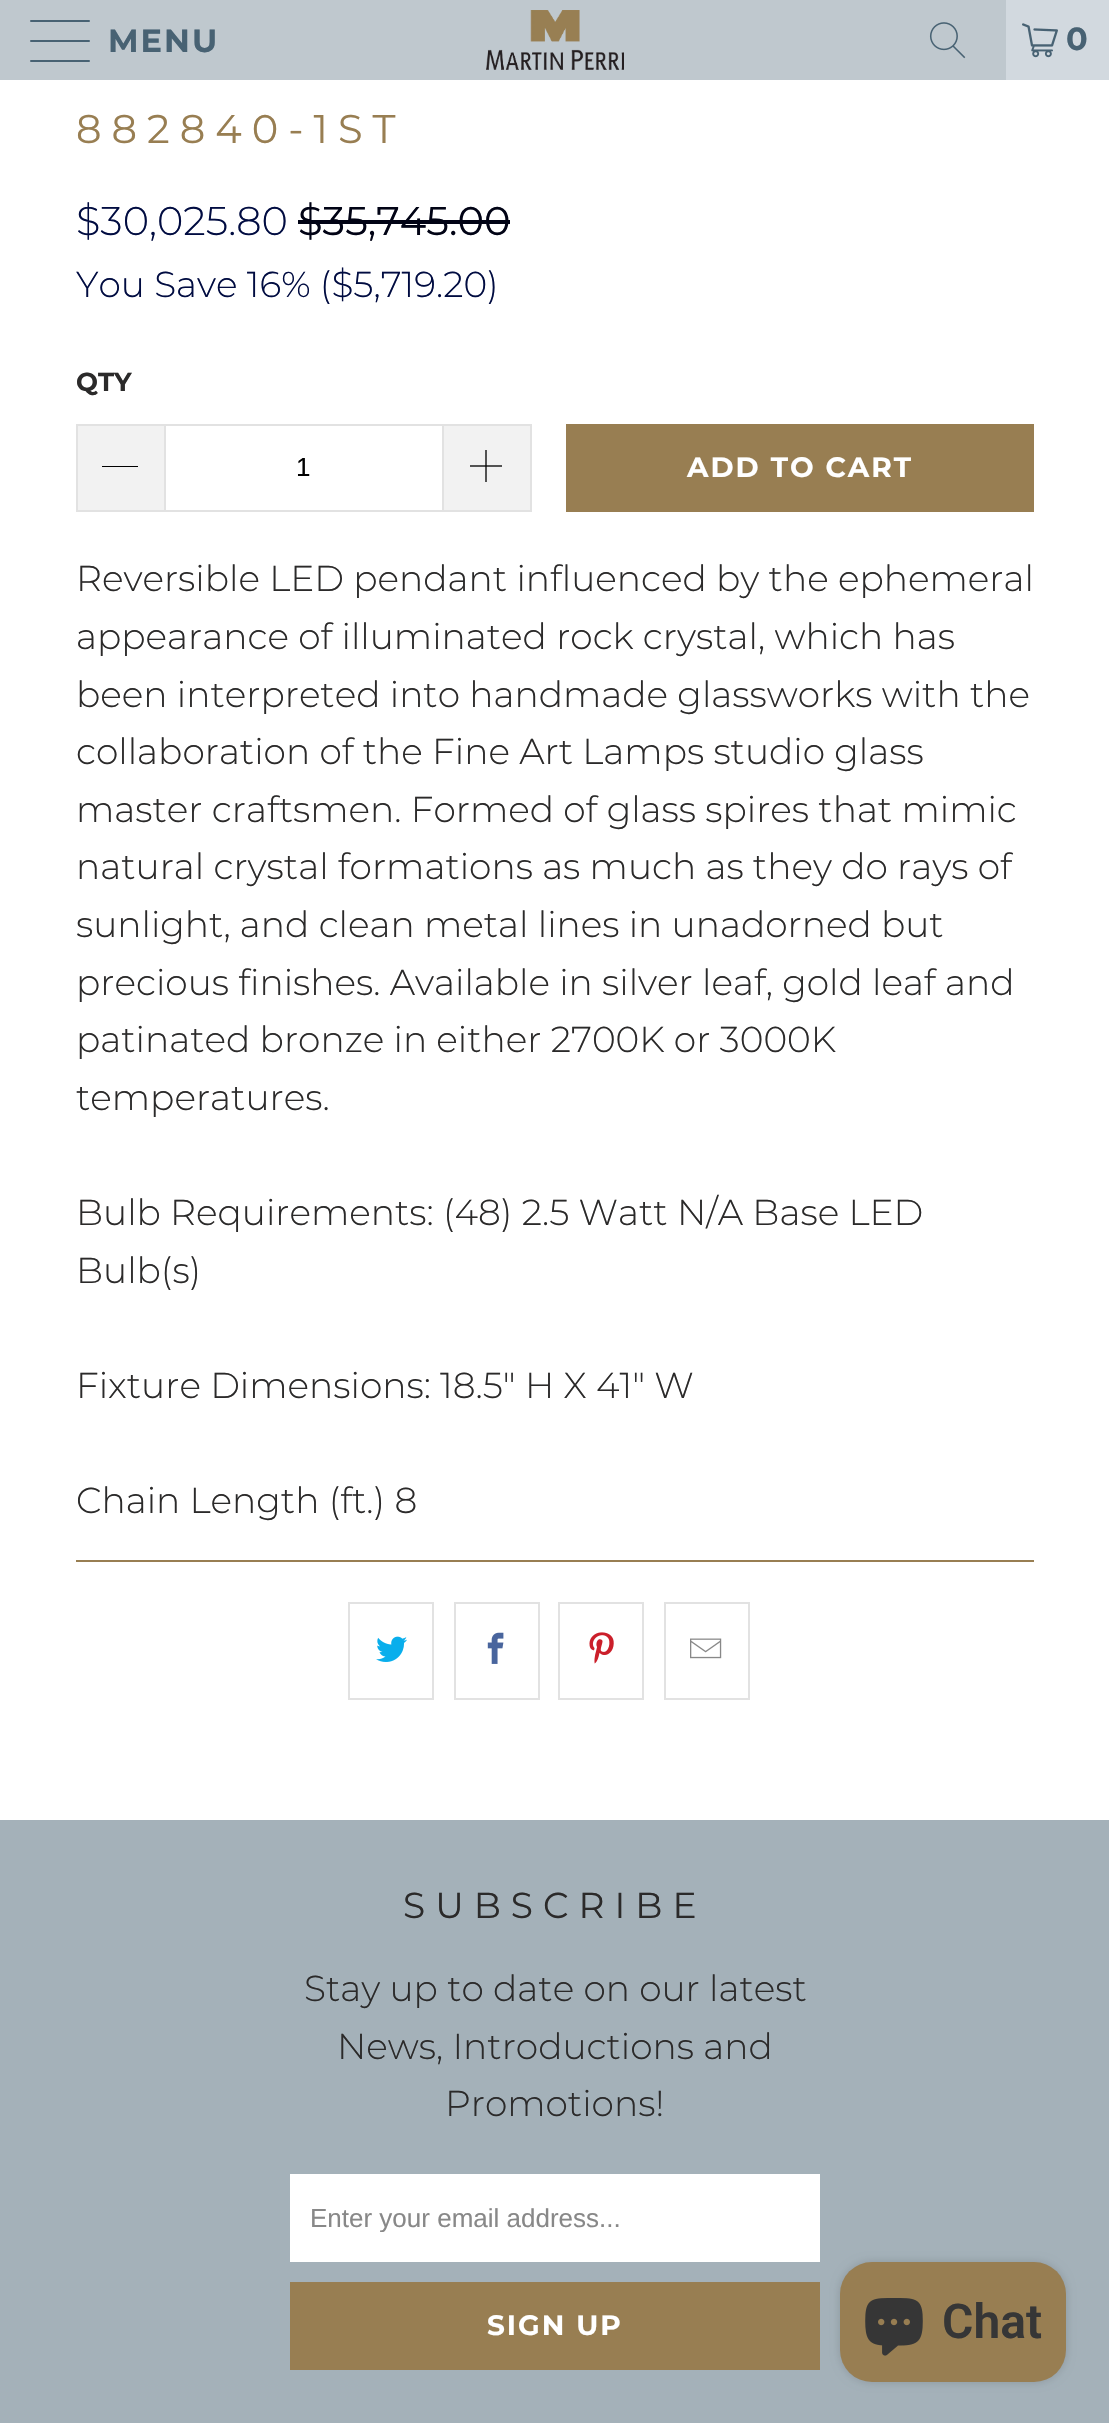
#include "include/core/SkBlurTypes.h"
#include "include/core/SkCanvas.h"
#include "include/core/SkData.h"
#include "include/core/SkFont.h"
#include "include/core/SkFontMgr.h"
#include "include/core/SkImage.h"
#include "include/core/SkMaskFilter.h"
#include "include/core/SkPaint.h"
#include "include/core/SkPathBuilder.h"
#include "include/core/SkTextBlob.h"
#include "include/effects/SkDashPathEffect.h"
#include "include/effects/SkGradientShader.h"
#include "include/utils/SkParsePath.h"

extern sk_sp<SkFontMgr> fontMgr;

void draw(SkCanvas* canvas) {
    SkPaint p;
    p.setAntiAlias(true);
    auto font = [&](const char* family, int weight, float size, bool italic = false) {
        SkFontStyle style(weight, SkFontStyle::kNormal_Width,
            italic ? SkFontStyle::kItalic_Slant : SkFontStyle::kUpright_Slant);
        SkFont result(fontMgr->matchFamilyStyle(family, style), size);
        result.setSubpixel(true);
        return result;
    };
    auto drawTracked = [&](const char* s, float x, float y, const SkFont& font, const SkPaint& ink, float letter, float word) {
        std::vector<SkGlyphID> glyphs(font.countText(s, strlen(s), SkTextEncoding::kUTF8));
        std::vector<float> xs(glyphs.size());
        font.textToGlyphs(s, strlen(s), SkTextEncoding::kUTF8, glyphs);
        font.getXPos(glyphs, xs, x);
        float extra = 0;
        for (size_t i = 0; i < glyphs.size(); i++) {
            xs[i] += extra;
            extra += letter + word * (glyphs[i] == font.unicharToGlyph(' '));
        }
        canvas->drawTextBlob(SkTextBlob::MakeFromPosHGlyphs(glyphs, xs, y, font), 0, 0, ink);
    };
    auto drawPhoto = [&](const char* path, float l, float t, float r, float b) {
        auto image = SkImages::DeferredFromEncodedData(SkData::MakeFromFileName(path));
        canvas->drawImageRect(image, SkRect::MakeLTRB(l, t, r, b), SkSamplingOptions());
    };
    canvas->clear(0xFFFFFFFF);
    p.setColor(0xFFBFC8CE);
    canvas->drawRect(SkRect::MakeLTRB(0, 0, 1006, 80), p);
    p.setColor(0xFF486273);
    canvas->drawRoundRect(SkRect::MakeLTRB(30, 20, 90, 22), 1, 1, p);
    canvas->drawRoundRect(SkRect::MakeLTRB(30, 40, 90, 42), 1, 1, p);
    canvas->drawRoundRect(SkRect::MakeLTRB(30, 60, 90, 62), 1, 1, p);
    auto font1 = font("Montserrat", 700, 32);
    drawTracked("MENU", 108, 52, font1, p, 2, 0);
    drawPhoto("media/1.png", 486, 10, 624, 70);
    drawPhoto("media/2.png", 929, 22, 966, 59);
    p.setColor(0xFFD2D9DF);
    canvas->drawRect(SkRect::MakeLTRB(1006, 0, 1109, 80), p);
    drawPhoto("media/3.png", 1022, 23, 1058, 58);
    p.setColor(0xFF486273);
    drawTracked("0", 1066, 50, font1, p, 2, 0);
    auto font2 = font("Montserrat", 400, 40);
    p.setColor(0xFF987E52);
    drawTracked("882840-1ST", 76, 143, font2, p, 10, 0);
    auto font3 = font("Montserrat", 300, 40);
    p.setColor(0xFF010C41);
    canvas->drawString("$30,025.80", 76, 235, font3, p);
    p.setColor(0xFF010315);
    canvas->drawString("$35,745.00", 298, 235, font2, p);
    canvas->drawRect(SkRect::MakeLTRB(298, 220, 510, 224), p);
    auto font4 = font("Montserrat", 300, 36);
    p.setColor(0xFF010C41);
    canvas->drawString("You Save 16% ($5,719.20)", 76, 297, font4, p);
    auto font5 = font("Montserrat", 700, 26);
    p.setColor(0xFF2B2A2A);
    canvas->drawString("QTY", 76, 391, font5, p);
    {
        const struct { float l, t, r, b; SkColor color; } items[] = {
            {78, 426, 164, 510, 0xFFF2F2F2},
            {76, 424, 164, 426, 0xFFE2E2E2},
            {76, 510, 164, 512, 0xFFE2E2E2},
            {76, 424, 78, 512, 0xFFE2E2E2},
            {102, 466, 138, 467, 0xFF000000},
        };
        for (auto [l, t, r, b, color] : items) {
            p.setColor(color);
            canvas->drawRect(SkRect::MakeLTRB(l, t, r, b), p);
        }
    }
    p.setStyle(SkPaint::kStroke_Style);
    p.setStrokeWidth(2);
    p.setColor(0xFFE2E2E2);
    canvas->drawRect(SkRect::MakeLTRB(165, 425, 443, 511), p);
    auto font6 = font("Liberation Sans", 400, 26);
    p.setStyle(SkPaint::kFill_Style);
    p.setColor(0xFF000000);
    canvas->drawString("1", 296, 476, font6, p);
    {
        const struct { float l, t, r, b; SkColor color; } items[] = {
            {444, 426, 530, 510, 0xFFF2F2F2},
            {444, 424, 532, 426, 0xFFE2E2E2},
            {530, 424, 532, 512, 0xFFE2E2E2},
            {444, 510, 532, 512, 0xFFE2E2E2},
        };
        for (auto [l, t, r, b, color] : items) {
            p.setColor(color);
            canvas->drawRect(SkRect::MakeLTRB(l, t, r, b), p);
        }
    }
    drawPhoto("media/4.png", 470, 450, 502, 482);
    p.setColor(0xFF987E52);
    canvas->drawRect(SkRect::MakeLTRB(566, 424, 1034, 512), p);
    auto font7 = font("Montserrat", 700, 28);
    p.setColor(0xFFFFFFFF);
    drawTracked("ADD TO CART", 687, 477, font7, p, 2, 0);
    p.setColor(0xFF2B2A2A);
    {
        const struct { const char* s; float x, y; } items[] = {
            {"Reversible LED pendant influenced by the ephemeral", 76, 591},
            {"appearance of illuminated rock crystal, which has", 76, 649},
            {"been interpreted into handmade glassworks with the", 76, 707},
            {"collaboration of the Fine Art Lamps studio glass", 76, 764},
            {"master craftsmen. Formed of glass spires that mimic", 76, 822},
            {"natural crystal formations as much as they do rays of", 76, 879},
            {"sunlight, and clean metal lines in unadorned but", 76, 937},
            {"precious finishes. Available in silver leaf, gold leaf and", 76, 995},
            {"patinated bronze in either 2700K or 3000K", 76, 1052},
            {"temperatures.", 76, 1110},
            {"Bulb Requirements: (48) 2.5 Watt N/A Base LED", 76, 1225},
            {"Bulb(s)", 76, 1283},
            {"Fixture Dimensions: 18.5\" H X 41\" W", 76, 1398},
            {"Chain Length (ft.) 8", 76, 1513},
        };
        for (auto [s, x, y] : items) {
            canvas->drawString(s, x, y, font4, p);
        }
    }
    p.setColor(0xFF987E52);
    canvas->drawRect(SkRect::MakeLTRB(76, 1560, 1034, 1562), p);
    p.setStyle(SkPaint::kStroke_Style);
    p.setColor(0xFFE2E2E2);
    canvas->drawRect(SkRect::MakeLTRB(349, 1603, 433, 1699), p);
    drawPhoto("media/5.png", 376, 1636, 407, 1662);
    canvas->drawRect(SkRect::MakeLTRB(455, 1603, 539, 1699), p);
    drawPhoto("media/6.png", 487, 1632, 504, 1664);
    canvas->drawRect(SkRect::MakeLTRB(559, 1603, 643, 1699), p);
    drawPhoto("media/7.png", 589, 1632, 614, 1664);
    canvas->drawRect(SkRect::MakeLTRB(665, 1603, 749, 1699), p);
    drawPhoto("media/8.png", 690, 1638, 722, 1659);
    p.setStyle(SkPaint::kFill_Style);
    p.setColor(0xFFA4B1B9);
    canvas->drawRect(SkRect::MakeLTRB(0, 1820, 1109, 2423), p);
    auto font8 = font("Montserrat", 400, 36);
    p.setColor(0xFF2B2A2A);
    drawTracked("SUBSCRIBE", 403, 1918, font8, p, 10, 0);
    {
        const struct { const char* s; float x, y; } items[] = {
            {"Stay up to date on our latest", 304, 2001},
            {"News, Introductions and", 337, 2059},
            {"Promotions!", 445, 2116},
        };
        for (auto [s, x, y] : items) {
            canvas->drawString(s, x, y, font4, p);
        }
    }
    p.setColor(0xFFFFFFFF);
    canvas->drawRect(SkRect::MakeLTRB(290, 2174, 820, 2262), p);
    canvas->save();
    canvas->clipRect(SkRect::MakeLTRB(310, 2202, 800, 2232));
    p.setColor(0xFF888888);
    canvas->drawString("Enter your email address...", 310, 2227, font6, p);
    canvas->restore();
    p.setColor(0xFF987E52);
    canvas->drawRect(SkRect::MakeLTRB(290, 2282, 820, 2370), p);
    p.setColor(0xFFFFFFFF);
    drawTracked("SIGN UP", 487, 2335, font7, p, 2, 0);
    p.setColor(0x26000000);
    p.setMaskFilter(SkMaskFilter::MakeBlur(kNormal_SkBlurStyle, 5));
    canvas->drawRoundRect(SkRect::MakeLTRB(840, 2262, 1066, 2382), 32, 32, p);
    p.setMaskFilter(nullptr);
    p.setColor(0xFF987E52);
    canvas->drawRoundRect(SkRect::MakeLTRB(840, 2262, 1066, 2382), 32, 32, p);
    drawPhoto("media/9.png", 865, 2298, 923, 2356);
    auto font9 = font("Roboto", 600, 48);
    p.setColor(0xFF363636);
    canvas->drawString("Chat", 942, 2338, font9, p);
}
